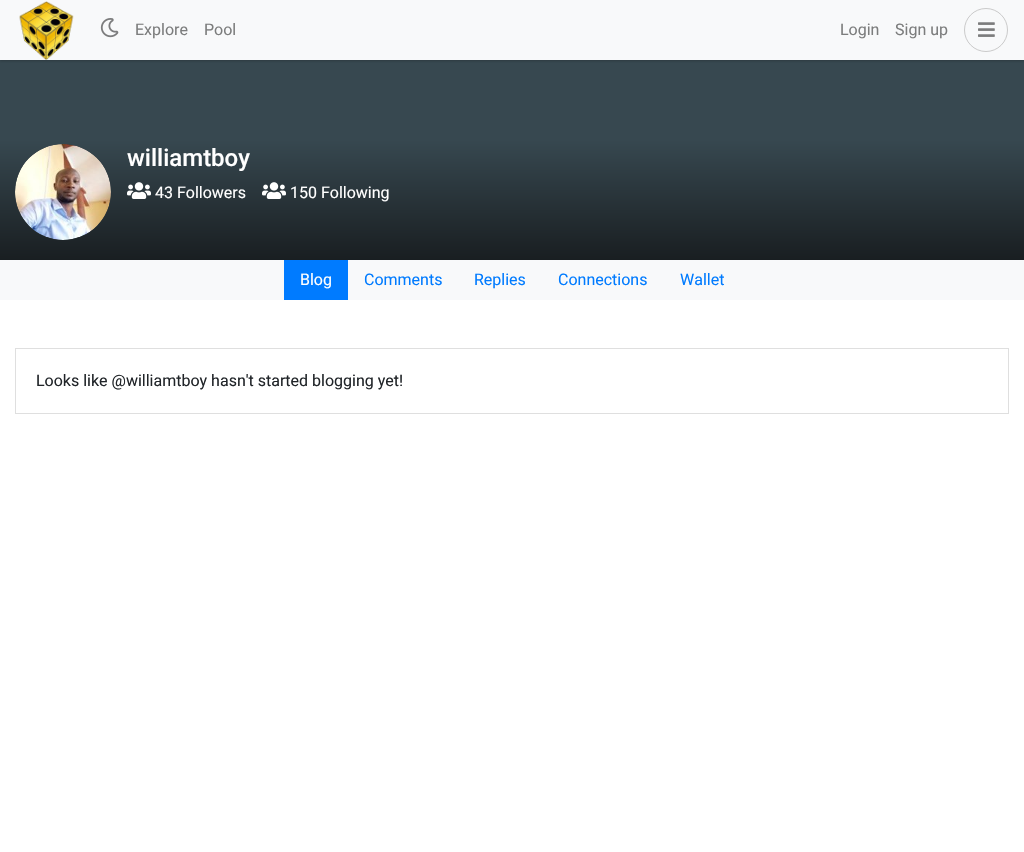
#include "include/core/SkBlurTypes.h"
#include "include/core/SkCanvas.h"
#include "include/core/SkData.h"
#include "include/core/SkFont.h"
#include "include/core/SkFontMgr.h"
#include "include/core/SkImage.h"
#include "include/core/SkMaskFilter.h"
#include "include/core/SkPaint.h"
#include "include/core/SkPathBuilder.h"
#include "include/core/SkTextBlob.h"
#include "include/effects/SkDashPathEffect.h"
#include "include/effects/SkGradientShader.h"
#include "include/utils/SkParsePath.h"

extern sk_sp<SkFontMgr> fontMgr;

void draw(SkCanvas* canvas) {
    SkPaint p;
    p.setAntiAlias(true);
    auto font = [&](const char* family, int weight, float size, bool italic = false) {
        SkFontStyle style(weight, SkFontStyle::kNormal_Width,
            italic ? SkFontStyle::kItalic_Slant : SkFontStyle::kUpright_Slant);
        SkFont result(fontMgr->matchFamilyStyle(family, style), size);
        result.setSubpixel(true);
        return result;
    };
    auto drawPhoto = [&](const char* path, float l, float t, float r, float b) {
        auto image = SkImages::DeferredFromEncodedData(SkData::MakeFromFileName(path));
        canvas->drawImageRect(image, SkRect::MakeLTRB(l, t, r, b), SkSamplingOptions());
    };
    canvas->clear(0xFFFFFFFF);
    {
        const SkColor colors[] = {0xFF374850, 0xFF374850, 0xFF191E21};
        const float stops[] = {0, 0.4f, 1};
        const SkPoint ends[] = {{512, 60}, {512, 260}};
        p.setShader(SkGradientShader::MakeLinear(ends, colors, stops, 3, SkTileMode::kClamp));
        p.setAlpha(255);
    }
    canvas->drawRect(SkRect::MakeLTRB(0, 60, 1024, 260), p);
    p.setShader(nullptr);
    p.setColor(0x24000000);
    p.setMaskFilter(SkMaskFilter::MakeBlur(kNormal_SkBlurStyle, 1));
    canvas->drawRect(SkRect::MakeLTRB(0, 1, 1024, 61), p);
    p.setMaskFilter(nullptr);
    p.setColor(0x12000000);
    p.setMaskFilter(SkMaskFilter::MakeBlur(kNormal_SkBlurStyle, 1.5f));
    canvas->drawRect(SkRect::MakeLTRB(0, 1, 1024, 61), p);
    p.setMaskFilter(nullptr);
    p.setColor(0xFFF8F9FA);
    canvas->drawRect(SkRect::MakeLTRB(0, 0, 1024, 60), p);
    drawPhoto("media/1.png", 19, 1, 74, 60);
    drawPhoto("media/2.png", 100, 18, 119, 38);
    auto font1 = font("Roboto", 400, 16);
    p.setColor(0xFF7C7D7D);
    {
        const struct { const char* s; float x, y; } items[] = {
            {"Explore", 135, 35},
            {"Pool", 204, 35},
            {"Login", 840, 35},
            {"Sign up", 895, 35},
        };
        for (auto [s, x, y] : items) {
            canvas->drawString(s, x, y, font1, p);
        }
    }
    p.setStyle(SkPaint::kStroke_Style);
    p.setStrokeWidth(1);
    p.setColor(0xFFCACACA);
    canvas->drawCircle(986, 30, 21.5f, p);
    drawPhoto("media/3.png", 978, 22, 995, 37);
    p.setStyle(SkPaint::kFill_Style);
    p.setColor(0xFF343A40);
    canvas->drawCircle(63, 192, 48, p);
    drawPhoto("media/4.png", 15, 144, 111, 240);
    auto font2 = font("Roboto", 500, 24);
    p.setColor(0xFFFFFFFF);
    canvas->drawString("williamtboy", 127, 166, font2, p);
    drawPhoto("media/5.png", 127, 182, 151, 199);
    canvas->drawString("43 Followers", 155, 198, font1, p);
    drawPhoto("media/5.png", 262, 182, 286, 199);
    canvas->drawString("150 Following", 290, 198, font1, p);
    p.setColor(0xFFF8F9FA);
    canvas->drawRect(SkRect::MakeLTRB(0, 260, 1024, 300), p);
    p.setColor(0xFF007BFF);
    canvas->drawRect(SkRect::MakeLTRB(284, 260, 348, 300), p);
    p.setColor(0xFFFFFFFF);
    canvas->drawString("Blog", 300, 285, font1, p);
    p.setColor(0xFF007BFF);
    {
        const struct { const char* s; float x, y; } items[] = {
            {"Comments", 364, 285},
            {"Replies", 474, 285},
            {"Connections", 558, 285},
            {"Wallet", 680, 285},
        };
        for (auto [s, x, y] : items) {
            canvas->drawString(s, x, y, font1, p);
        }
    }
    p.setStyle(SkPaint::kStroke_Style);
    p.setColor(0xFFDFDFDF);
    canvas->drawRect(SkRect::MakeLTRB(15.5f, 348.5f, 1008.5f, 413.5f), p);
    p.setStyle(SkPaint::kFill_Style);
    p.setColor(0xFF212529);
    canvas->drawString("Looks like @williamtboy hasn't started blogging yet!", 36, 386, font1, p);
}
